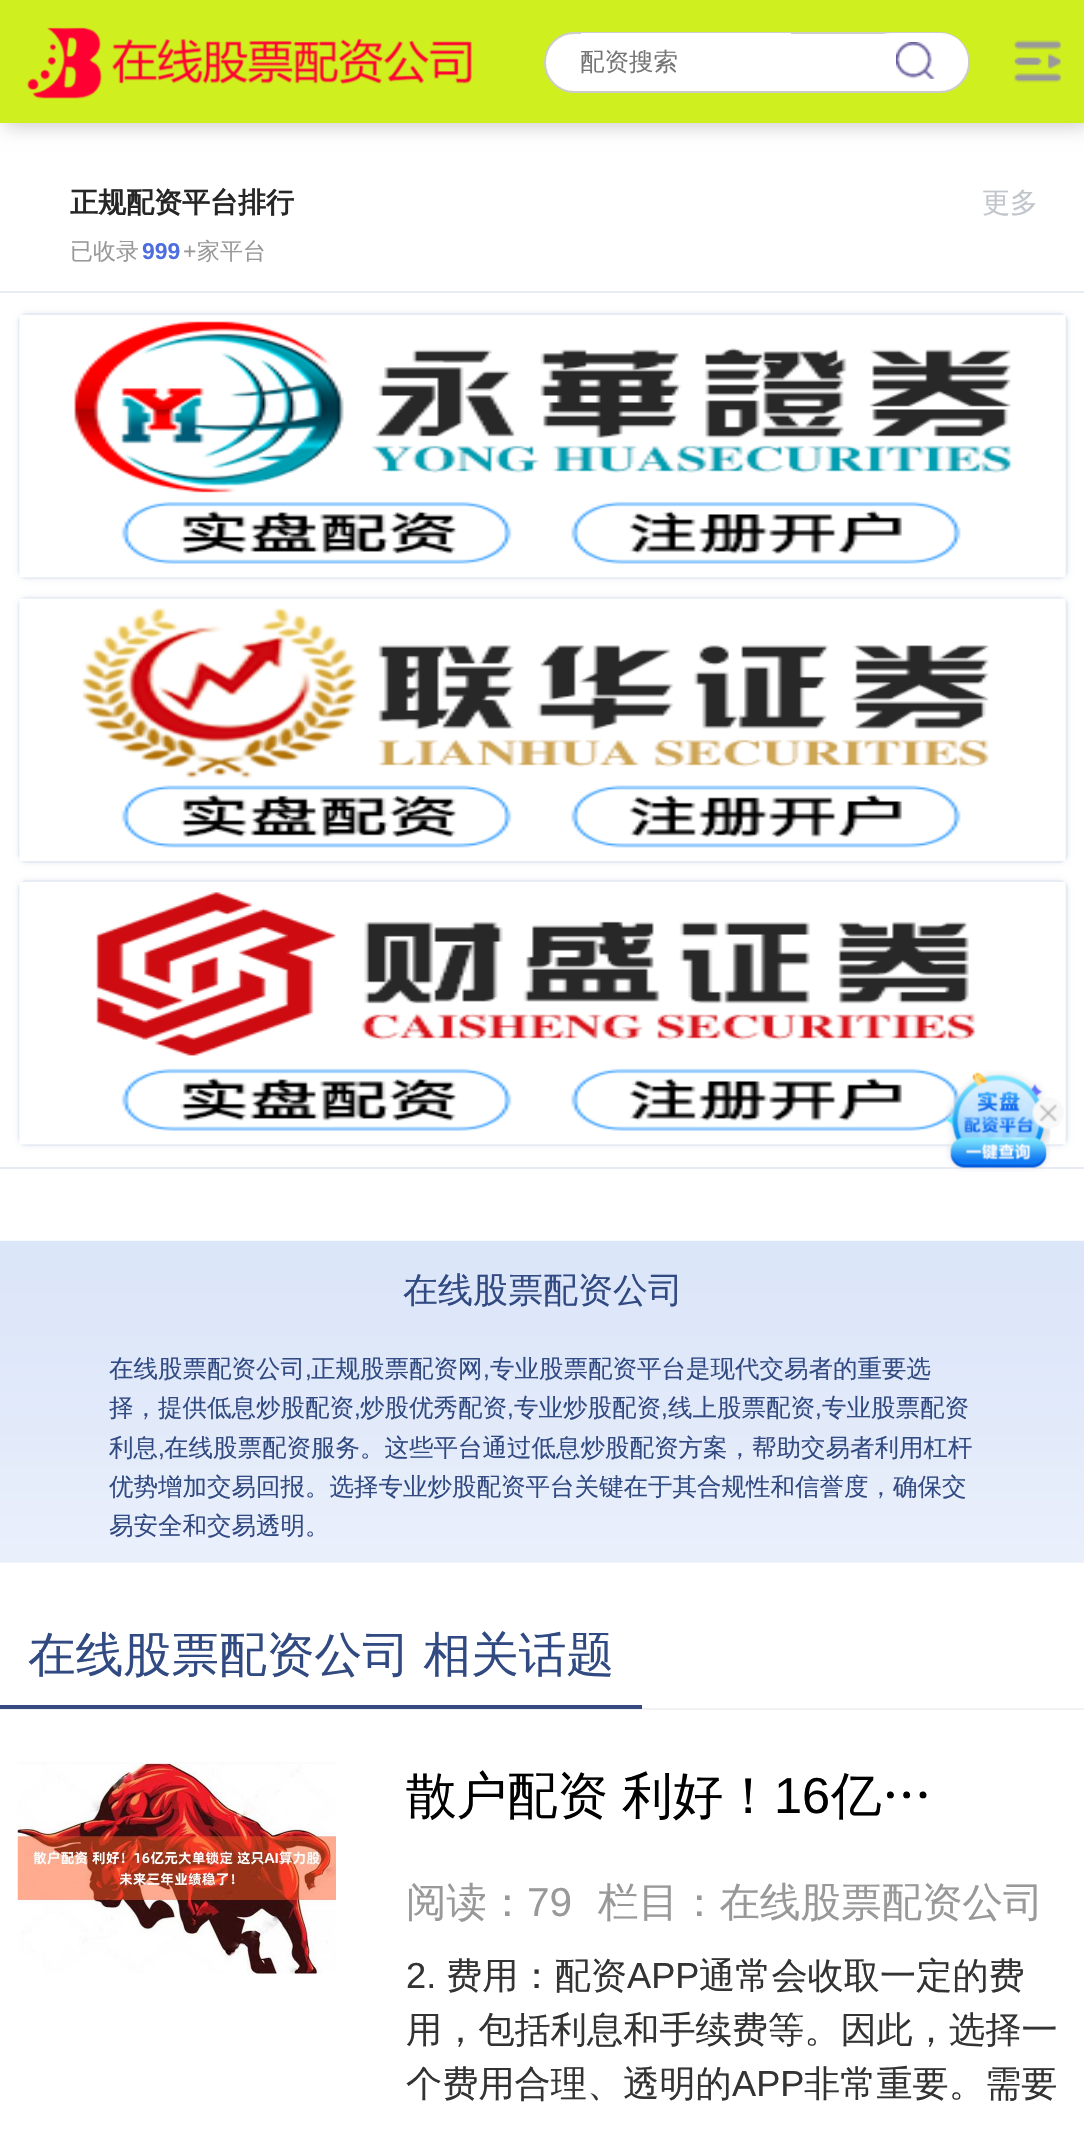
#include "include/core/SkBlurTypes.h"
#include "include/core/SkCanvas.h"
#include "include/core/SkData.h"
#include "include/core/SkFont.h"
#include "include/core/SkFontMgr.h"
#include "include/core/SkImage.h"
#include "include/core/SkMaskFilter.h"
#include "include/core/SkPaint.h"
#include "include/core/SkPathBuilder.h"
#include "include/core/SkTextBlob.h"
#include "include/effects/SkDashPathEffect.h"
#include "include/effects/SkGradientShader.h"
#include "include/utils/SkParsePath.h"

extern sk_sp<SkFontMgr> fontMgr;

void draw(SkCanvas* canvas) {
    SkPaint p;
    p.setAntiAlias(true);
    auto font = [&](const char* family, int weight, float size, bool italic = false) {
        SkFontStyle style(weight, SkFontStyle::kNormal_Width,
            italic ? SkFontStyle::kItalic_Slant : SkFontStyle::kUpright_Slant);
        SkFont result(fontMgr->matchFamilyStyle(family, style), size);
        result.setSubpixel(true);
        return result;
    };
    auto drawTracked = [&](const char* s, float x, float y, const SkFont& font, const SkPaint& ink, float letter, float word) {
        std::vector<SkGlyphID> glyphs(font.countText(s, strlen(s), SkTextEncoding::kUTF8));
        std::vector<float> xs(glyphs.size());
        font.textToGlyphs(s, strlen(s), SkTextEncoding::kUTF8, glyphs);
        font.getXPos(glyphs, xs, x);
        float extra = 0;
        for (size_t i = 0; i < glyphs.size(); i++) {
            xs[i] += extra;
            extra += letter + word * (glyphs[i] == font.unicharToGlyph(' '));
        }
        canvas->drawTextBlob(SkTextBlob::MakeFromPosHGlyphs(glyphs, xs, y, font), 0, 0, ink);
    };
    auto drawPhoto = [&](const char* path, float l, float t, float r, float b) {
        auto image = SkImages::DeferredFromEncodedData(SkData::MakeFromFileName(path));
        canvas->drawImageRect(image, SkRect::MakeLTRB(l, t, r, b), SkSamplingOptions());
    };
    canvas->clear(0xFFFFFFFF);
    p.setColor(0xFFCCCCCC);
    p.setMaskFilter(SkMaskFilter::MakeBlur(kNormal_SkBlurStyle, 9));
    canvas->drawRect(SkRect::MakeLTRB(4, 4, 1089, 126), p);
    p.setMaskFilter(nullptr);
    p.setColor(0xFFCFEF1E);
    canvas->drawRect(SkRect::MakeLTRB(0, 0, 1084, 123), p);
    drawPhoto("media/1.png", 27, 27, 472, 99);
    p.setColor(0xFFFFFFFF);
    canvas->drawRoundRect(SkRect::MakeLTRB(545, 33, 969, 92), 29.5f, 29.5f, p);
    p.setStyle(SkPaint::kStroke_Style);
    p.setStrokeWidth(2);
    p.setColor(0xFFCCCCCC);
    canvas->drawRoundRect(SkRect::MakeLTRB(545, 33, 969, 92), 29.5f, 29.5f, p);
    p.setStyle(SkPaint::kFill_Style);
    p.setColor(0xFFFFFFFF);
    canvas->drawRect(SkRect::MakeLTRB(581, 33, 791, 34), p);
    auto font1 = font("WenQuanYi Zen Hei", 500, 24.5f);
    p.setColor(0xFF757575);
    canvas->drawString("配资搜索", 580, 70, font1, p);
    p.setColor(0xFFFFFFFF);
    canvas->drawRoundRect(SkRect::MakeLTRB(863, 33, 968, 88), 27.5f, 27.5f, p);
    drawPhoto("media/2.png", 896, 42, 935, 79);
    drawPhoto("media/3.png", 1013, 40, 1062, 83);
    p.setColor(0xFFE7ECF4);
    canvas->drawRect(SkRect::MakeLTRB(0, 291, 1084, 293), p);
    auto font2 = font("WenQuanYi Zen Hei", 700, 28);
    p.setColor(0xFF262626);
    canvas->drawString("正规配资平台排行", 70, 212, font2, p);
    auto font3 = font("WenQuanYi Zen Hei", 500, 23);
    p.setColor(0xFF999999);
    canvas->drawString("已收录", 70, 259, font3, p);
    auto font4 = font("Liberation Sans", 700, 23);
    p.setColor(0xFF4E6EDF);
    canvas->drawString("999", 142, 259, font4, p);
    auto font5 = font("Liberation Sans", 400, 23);
    p.setColor(0xFF999999);
    canvas->drawString("+", 183, 259, font5, p);
    canvas->drawString("家平台", 197, 259, font3, p);
    auto font6 = font("WenQuanYi Zen Hei", 500, 28);
    p.setColor(0xFFC2C6CC);
    canvas->drawString("更多", 982, 212, font6, p);
    p.setColor(0xFFE7ECF4);
    canvas->drawRect(SkRect::MakeLTRB(0, 1167, 1084, 1169), p);
    p.setMaskFilter(SkMaskFilter::MakeBlur(kNormal_SkBlurStyle, 2.5f));
    canvas->drawRoundRect(SkRect::MakeLTRB(18, 313, 1068, 579), 9, 9, p);
    p.setMaskFilter(nullptr);
    p.setStyle(SkPaint::kStroke_Style);
    canvas->drawRoundRect(SkRect::MakeLTRB(19, 314, 1067, 578), 8, 8, p);
    drawPhoto("media/4.png", 19, 315, 1066, 578);
    p.setStyle(SkPaint::kFill_Style);
    p.setMaskFilter(SkMaskFilter::MakeBlur(kNormal_SkBlurStyle, 2.5f));
    canvas->drawRoundRect(SkRect::MakeLTRB(18, 597, 1068, 863), 9, 9, p);
    p.setMaskFilter(nullptr);
    p.setStyle(SkPaint::kStroke_Style);
    canvas->drawRoundRect(SkRect::MakeLTRB(19, 598, 1067, 862), 8, 8, p);
    drawPhoto("media/5.png", 19, 598, 1066, 861);
    p.setStyle(SkPaint::kFill_Style);
    p.setMaskFilter(SkMaskFilter::MakeBlur(kNormal_SkBlurStyle, 2.5f));
    canvas->drawRoundRect(SkRect::MakeLTRB(18, 880, 1068, 1146), 9, 9, p);
    p.setMaskFilter(nullptr);
    p.setStyle(SkPaint::kStroke_Style);
    canvas->drawRoundRect(SkRect::MakeLTRB(19, 881, 1067, 1145), 8, 8, p);
    drawPhoto("media/6.png", 19, 882, 1066, 1145);
    drawPhoto("media/7.png", 945, 1070, 1051, 1172);
    drawPhoto("media/8.png", 1032, 1097, 1064, 1130);
    drawPhoto("media/9.png", 0, 1240, 1084, 1563);
    auto font7 = font("WenQuanYi Zen Hei", 500, 35);
    p.setStyle(SkPaint::kFill_Style);
    p.setColor(0xFF314A82);
    canvas->drawString("在线股票配资公司", 403, 1302, font7, p);
    canvas->drawString("在线股票配资公司", 109, 1377, font1, p);
    auto font8 = font("Liberation Sans", 400, 24.5f);
    canvas->drawString(",", 305, 1377, font8, p);
    canvas->drawString("正规股票配资网", 311, 1377, font1, p);
    canvas->drawString(",", 483, 1377, font8, p);
    canvas->drawString("专业股票配资平台是现代交易者的重要选", 490, 1377, font1, p);
    canvas->drawString("择，提供低息炒股配资", 109, 1416, font1, p);
    canvas->drawString(",", 354, 1416, font8, p);
    canvas->drawString("炒股优秀配资", 360, 1416, font1, p);
    canvas->drawString(",", 507, 1416, font8, p);
    canvas->drawString("专业炒股配资", 514, 1416, font1, p);
    canvas->drawString(",", 661, 1416, font8, p);
    canvas->drawString("线上股票配资", 668, 1416, font1, p);
    canvas->drawString(",", 815, 1416, font8, p);
    canvas->drawString("专业股票配资", 822, 1416, font1, p);
    canvas->drawString("利息", 109, 1456, font1, p);
    canvas->drawString(",", 158, 1456, font8, p);
    {
        const struct { const char* s; float x, y; } items[] = {
            {"在线股票配资服务。这些平台通过低息炒股配资方案，帮助交易者利用杠杆", 164, 1456},
            {"优势增加交易回报。选择专业炒股配资平台关键在于其合规性和信誉度，确保交", 109, 1495},
            {"易安全和交易透明。", 109, 1534},
        };
        for (auto [s, x, y] : items) {
            canvas->drawString(s, x, y, font1, p);
        }
    }
    p.setColor(0xFFF2F2F2);
    canvas->drawRect(SkRect::MakeLTRB(0, 1708, 1084, 1710), p);
    p.setColor(0xFF354A83);
    canvas->drawRect(SkRect::MakeLTRB(0, 1705, 642, 1709), p);
    auto font9 = font("WenQuanYi Zen Hei", 500, 47.75f);
    p.setColor(0xFF314A82);
    drawTracked("在线股票配资公司 相关话题", 28, 1671, font9, p, 0, -1);
    drawPhoto("media/10.png", 17, 1762, 336, 1974);
    auto font10 = font("WenQuanYi Zen Hei", 500, 50.5f);
    p.setColor(0xFF000000);
    drawTracked("散户配资 利好！", 406, 1813, font10, p, 0, -1);
    auto font11 = font("Liberation Sans", 400, 50.5f);
    canvas->drawString("16", 774, 1813, font11, p);
    drawTracked("亿…", 831, 1813, font10, p, 0, -1);
    auto font12 = font("WenQuanYi Zen Hei", 500, 40.5f);
    p.setColor(0xFF999999);
    canvas->drawString("阅读：", 406, 1916, font12, p);
    auto font13 = font("Liberation Sans", 400, 40.5f);
    canvas->drawString("79", 527, 1916, font13, p);
    canvas->drawString("栏目：在线股票配资公司", 598, 1916, font12, p);
    auto font14 = font("Liberation Sans", 400, 36.2f);
    p.setColor(0xFF333333);
    canvas->drawString("2.", 406, 1988, font14, p);
    auto font15 = font("WenQuanYi Zen Hei", 500, 36.2f);
    canvas->drawString("费用：配资", 446, 1988, font15, p);
    canvas->drawString("APP", 627, 1988, font14, p);
    {
        const struct { const char* s; float x, y; } items[] = {
            {"通常会收取一定的费", 699, 1988},
            {"用，包括利息和手续费等。因此，选择一", 406, 2042},
            {"个费用合理、透明的", 406, 2096},
        };
        for (auto [s, x, y] : items) {
            canvas->drawString(s, x, y, font15, p);
        }
    }
    canvas->drawString("APP", 732, 2096, font14, p);
    canvas->drawString("非常重要。需要", 804, 2096, font15, p);
}
